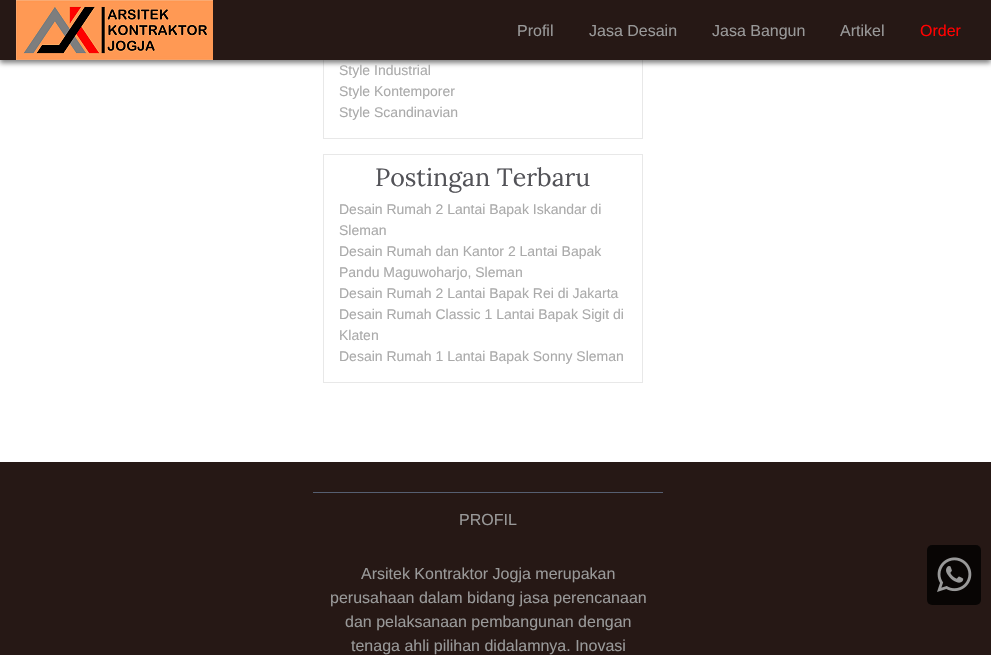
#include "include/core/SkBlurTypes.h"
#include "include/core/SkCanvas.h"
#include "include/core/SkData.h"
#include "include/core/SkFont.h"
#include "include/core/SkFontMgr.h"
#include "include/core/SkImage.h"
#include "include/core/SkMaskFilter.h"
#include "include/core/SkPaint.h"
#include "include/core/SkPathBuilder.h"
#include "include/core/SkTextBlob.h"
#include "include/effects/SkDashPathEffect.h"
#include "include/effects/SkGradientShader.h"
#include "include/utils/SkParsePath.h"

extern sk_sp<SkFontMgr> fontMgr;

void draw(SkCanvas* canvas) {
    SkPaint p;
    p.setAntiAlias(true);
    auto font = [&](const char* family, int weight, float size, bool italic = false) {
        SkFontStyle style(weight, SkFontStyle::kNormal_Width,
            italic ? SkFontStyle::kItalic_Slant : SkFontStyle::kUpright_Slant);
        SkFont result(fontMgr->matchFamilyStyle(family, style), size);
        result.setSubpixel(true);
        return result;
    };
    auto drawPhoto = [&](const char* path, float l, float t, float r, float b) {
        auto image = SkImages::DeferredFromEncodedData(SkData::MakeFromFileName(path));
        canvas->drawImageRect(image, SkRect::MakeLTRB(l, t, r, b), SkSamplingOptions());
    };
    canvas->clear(0xFFFFFFFF);
    p.setStyle(SkPaint::kStroke_Style);
    p.setStrokeWidth(1);
    p.setColor(0xFFE8E8E8);
    canvas->drawRect(SkRect::MakeLTRB(323.5f, -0.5f, 642.5f, 138.5f), p);
    p.setStyle(SkPaint::kFill_Style);
    p.setColor(0x80000000);
    p.setMaskFilter(SkMaskFilter::MakeBlur(kNormal_SkBlurStyle, 2.5f));
    canvas->drawRect(SkRect::MakeLTRB(0, 3, 991, 63), p);
    p.setMaskFilter(nullptr);
    p.setColor(0xFF261815);
    canvas->drawRect(SkRect::MakeLTRB(0, 0, 991, 60), p);
    drawPhoto("media/1.png", 16, 0, 213, 60);
    auto font1 = font("Liberation Sans", 400, 16);
    p.setColor(0xFF999999);
    {
        const struct { const char* s; float x, y; } items[] = {
            {"Profil", 517, 36},
            {"Jasa Desain", 589, 36},
            {"Jasa Bangun", 712, 36},
            {"Artikel", 840, 36},
        };
        for (auto [s, x, y] : items) {
            canvas->drawString(s, x, y, font1, p);
        }
    }
    p.setColor(0xFFFF0000);
    canvas->drawString("Order", 920, 36, font1, p);
    auto font2 = font("Liberation Sans", 400, 14);
    p.setColor(0xFFAAAAAA);
    {
        const struct { const char* s; float x, y; } items[] = {
            {"Style Industrial", 339, 75},
            {"Style Kontemporer", 339, 96},
            {"Style Scandinavian", 339, 117},
        };
        for (auto [s, x, y] : items) {
            canvas->drawString(s, x, y, font2, p);
        }
    }
    p.setStyle(SkPaint::kStroke_Style);
    p.setColor(0xFFE8E8E8);
    canvas->drawRect(SkRect::MakeLTRB(323.5f, 154.5f, 642.5f, 382.5f), p);
    auto font3 = font("Lora", 400, 25);
    p.setStyle(SkPaint::kFill_Style);
    p.setColor(0xFF535358);
    canvas->drawString("Postingan Terbaru", 375, 186, font3, p);
    p.setColor(0xFFAAAAAA);
    {
        const struct { const char* s; float x, y; } items[] = {
            {"Desain Rumah 2 Lantai Bapak Iskandar di", 339, 214},
            {"Sleman", 339, 235},
            {"Desain Rumah dan Kantor 2 Lantai Bapak", 339, 256},
            {"Pandu Maguwoharjo, Sleman", 339, 277},
            {"Desain Rumah 2 Lantai Bapak Rei di Jakarta", 339, 298},
            {"Desain Rumah Classic 1 Lantai Bapak Sigit di", 339, 319},
            {"Klaten", 339, 340},
            {"Desain Rumah 1 Lantai Bapak Sonny Sleman", 339, 361},
        };
        for (auto [s, x, y] : items) {
            canvas->drawString(s, x, y, font2, p);
        }
    }
    p.setColor(0xFF261815);
    canvas->drawRect(SkRect::MakeLTRB(0, 462, 991, 655), p);
    p.setColor(0xFF565F71);
    canvas->drawRect(SkRect::MakeLTRB(313, 492, 663, 493), p);
    p.setColor(0xFF999999);
    {
        const struct { const char* s; float x, y; } items[] = {
            {"PROFIL", 459, 525},
            {"Arsitek Kontraktor Jogja merupakan", 361, 579},
            {"perusahaan dalam bidang jasa perencanaan", 330, 603},
            {"dan pelaksanaan pembangunan dengan", 345, 627},
            {"tenaga ahli pilihan didalamnya. Inovasi", 351, 651},
        };
        for (auto [s, x, y] : items) {
            canvas->drawString(s, x, y, font1, p);
        }
    }
    p.setColor(0xFF080504);
    canvas->drawRoundRect(SkRect::MakeLTRB(927, 545, 981, 605), 5, 5, p);
    drawPhoto("media/2.png", 937, 557, 972, 592);
}
